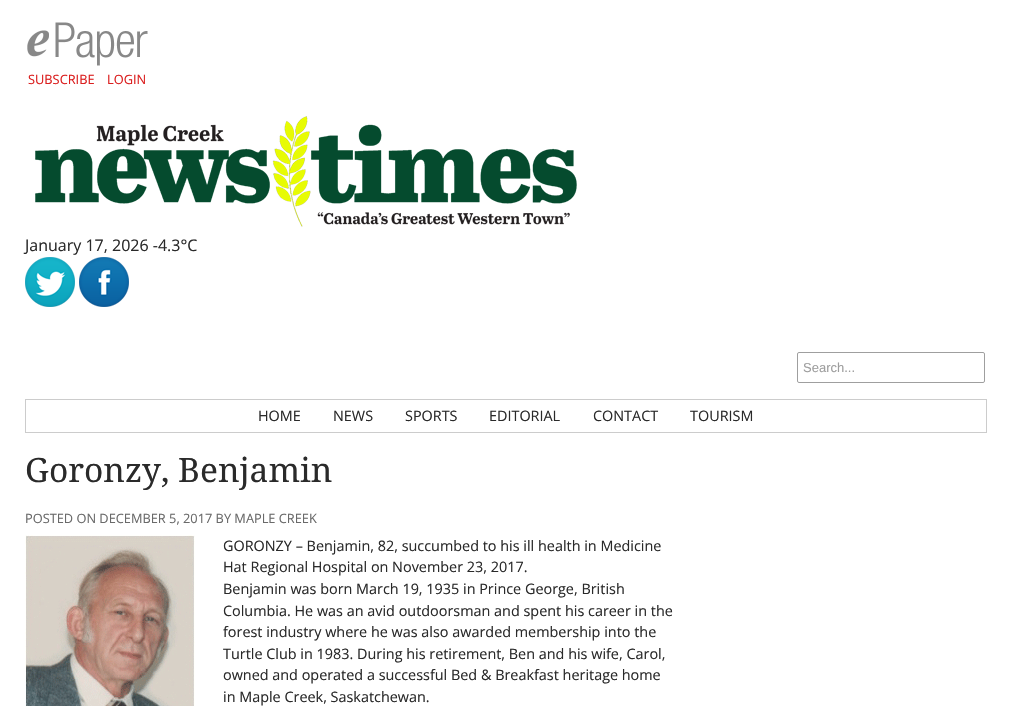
#include "include/core/SkBlurTypes.h"
#include "include/core/SkCanvas.h"
#include "include/core/SkData.h"
#include "include/core/SkFont.h"
#include "include/core/SkFontMgr.h"
#include "include/core/SkImage.h"
#include "include/core/SkMaskFilter.h"
#include "include/core/SkPaint.h"
#include "include/core/SkPathBuilder.h"
#include "include/core/SkTextBlob.h"
#include "include/effects/SkDashPathEffect.h"
#include "include/effects/SkGradientShader.h"
#include "include/utils/SkParsePath.h"

extern sk_sp<SkFontMgr> fontMgr;

void draw(SkCanvas* canvas) {
    SkPaint p;
    p.setAntiAlias(true);
    auto font = [&](const char* family, int weight, float size, bool italic = false) {
        SkFontStyle style(weight, SkFontStyle::kNormal_Width,
            italic ? SkFontStyle::kItalic_Slant : SkFontStyle::kUpright_Slant);
        SkFont result(fontMgr->matchFamilyStyle(family, style), size);
        result.setSubpixel(true);
        return result;
    };
    auto drawPhoto = [&](const char* path, float l, float t, float r, float b) {
        auto image = SkImages::DeferredFromEncodedData(SkData::MakeFromFileName(path));
        canvas->drawImageRect(image, SkRect::MakeLTRB(l, t, r, b), SkSamplingOptions());
    };
    canvas->clear(0xFFFFFFFF);
    drawPhoto("media/1.png", 27, 22, 148, 66);
    auto font1 = font("Open Sans", 400, 12.8f);
    p.setColor(0xFFDB1F1F);
    canvas->drawString("SUBSCRIBE", 28, 84, font1, p);
    canvas->drawString("LOGIN", 107, 84, font1, p);
    drawPhoto("media/2.png", 35, 116, 577, 227);
    auto font2 = font("Open Sans", 400, 16);
    p.setColor(0xFF2A2A2A);
    canvas->drawString("January 17, 2026 -4.3°C", 25, 251, font2, p);
    drawPhoto("media/3.png", 25, 257, 75, 307);
    drawPhoto("media/4.png", 79, 257, 129, 307);
    p.setStyle(SkPaint::kStroke_Style);
    p.setStrokeWidth(1);
    p.setColor(0xFF9F9F9F);
    canvas->drawRoundRect(SkRect::MakeLTRB(797.5f, 352.5f, 984.5f, 382.5f), 1.5f, 1.5f, p);
    auto font3 = font("Liberation Sans", 400, 13);
    p.setStyle(SkPaint::kFill_Style);
    p.setColor(0xFF9E9E9E);
    canvas->drawString("Search...", 803, 372, font3, p);
    p.setStyle(SkPaint::kStroke_Style);
    p.setColor(0xFFCCCCCC);
    canvas->drawRect(SkRect::MakeLTRB(25.5f, 399.5f, 986.5f, 432.5f), p);
    auto font4 = font("Open Sans", 400, 14.4f);
    p.setStyle(SkPaint::kFill_Style);
    p.setColor(0xFF2A2A2A);
    {
        const struct { const char* s; float x, y; } items[] = {
            {"HOME", 258, 421},
            {"NEWS", 333, 421},
            {"SPORTS", 405, 421},
            {"EDITORIAL", 489, 421},
            {"CONTACT", 593, 421},
            {"TOURISM", 690, 421},
        };
        for (auto [s, x, y] : items) {
            canvas->drawString(s, x, y, font4, p);
        }
    }
    auto font5 = font("Droid Serif", 400, 33.5f);
    canvas->drawString("Goronzy, Benjamin", 25, 482, font5, p);
    p.setColor(0xFF6A6A6A);
    canvas->drawString("POSTED ON DECEMBER 5, 2017 BY MAPLE CREEK", 25, 523, font1, p);
    drawPhoto("media/5.png", 25, 535, 195, 706);
    p.setColor(0xFF2A2A2A);
    {
        const struct { const char* s; float x, y; } items[] = {
            {"GORONZY – Benjamin, 82, succumbed to his ill health in Medicine", 223, 551},
            {"Hat Regional Hospital on November 23, 2017.", 223, 572},
            {"Benjamin was born March 19, 1935 in Prince George, British", 223, 594},
            {"Columbia. He was an avid outdoorsman and spent his career in the", 223, 616},
            {"forest industry where he was also awarded membership into the", 223, 637},
            {"Turtle Club in 1983. During his retirement, Ben and his wife, Carol,", 223, 659},
            {"owned and operated a successful Bed & Breakfast heritage home", 223, 680},
            {"in Maple Creek, Saskatchewan.", 223, 702},
        };
        for (auto [s, x, y] : items) {
            canvas->drawString(s, x, y, font4, p);
        }
    }
}
